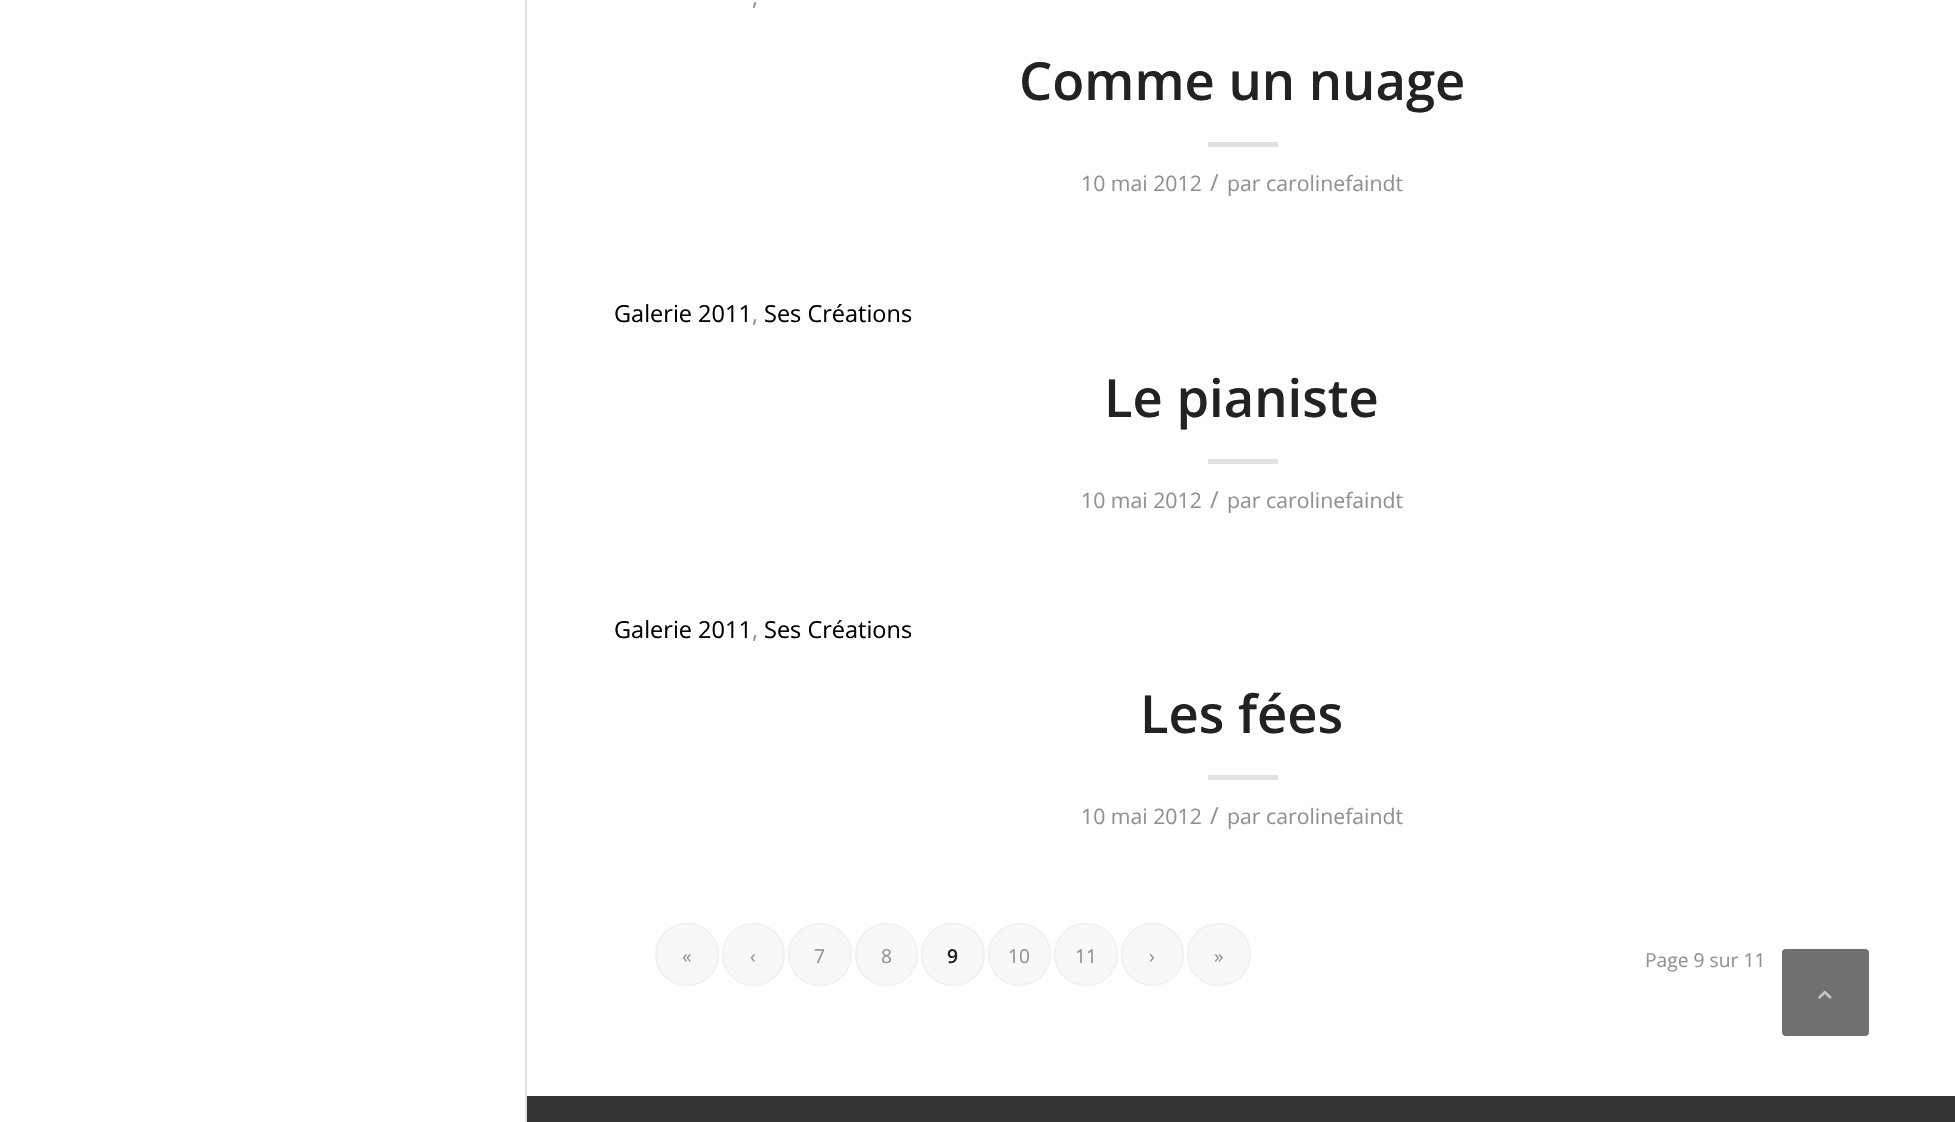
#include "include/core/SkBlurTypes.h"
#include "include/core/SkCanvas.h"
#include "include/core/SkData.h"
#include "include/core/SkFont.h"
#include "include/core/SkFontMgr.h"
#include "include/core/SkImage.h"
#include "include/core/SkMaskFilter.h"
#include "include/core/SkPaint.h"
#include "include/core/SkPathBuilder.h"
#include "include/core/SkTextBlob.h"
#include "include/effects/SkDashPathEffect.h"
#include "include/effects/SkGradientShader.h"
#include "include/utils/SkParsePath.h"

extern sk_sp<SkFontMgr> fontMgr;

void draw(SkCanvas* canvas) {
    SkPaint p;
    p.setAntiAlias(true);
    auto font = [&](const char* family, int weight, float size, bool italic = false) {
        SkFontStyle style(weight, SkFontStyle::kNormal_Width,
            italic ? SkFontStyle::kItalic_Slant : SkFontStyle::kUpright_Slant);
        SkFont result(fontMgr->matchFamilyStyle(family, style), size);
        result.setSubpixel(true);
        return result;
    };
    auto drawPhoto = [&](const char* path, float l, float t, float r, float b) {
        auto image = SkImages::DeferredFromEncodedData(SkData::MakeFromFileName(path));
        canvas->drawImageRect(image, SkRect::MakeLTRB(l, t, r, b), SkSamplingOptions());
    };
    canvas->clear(0xFFFFFFFF);
    p.setColor(0xFFE1E1E1);
    canvas->drawRect(SkRect::MakeLTRB(525, 0, 527, 1122), p);
    auto font1 = font("Open Sans", 400, 23.5f);
    p.setColor(0xFF919191);
    canvas->drawString(",", 752, 5, font1, p);
    auto font2 = font("Open Sans", 600, 52.5f);
    p.setColor(0xFF222222);
    canvas->drawString("Comme un nuage", 1019, 100, font2, p);
    p.setColor(0xFFE1E1E1);
    canvas->drawRect(SkRect::MakeLTRB(1208, 142, 1278, 147), p);
    auto font3 = font("Open Sans", 400, 21.25f);
    p.setColor(0xFF919191);
    canvas->drawString("10 mai 2012", 1081, 191, font3, p);
    canvas->drawString("/", 1210, 191, font1, p);
    canvas->drawString("par carolinefaindt", 1227, 191, font3, p);
    p.setColor(0xFF000000);
    canvas->drawString("Galerie 2011", 614, 322, font1, p);
    p.setColor(0xFF919191);
    canvas->drawString(",", 752, 322, font1, p);
    p.setColor(0xFF000000);
    canvas->drawString("Ses Créations", 764, 322, font1, p);
    p.setColor(0xFF222222);
    canvas->drawString("Le pianiste", 1104, 417, font2, p);
    p.setColor(0xFFE1E1E1);
    canvas->drawRect(SkRect::MakeLTRB(1208, 459, 1278, 464), p);
    p.setColor(0xFF919191);
    canvas->drawString("10 mai 2012", 1081, 508, font3, p);
    canvas->drawString("/", 1210, 508, font1, p);
    canvas->drawString("par carolinefaindt", 1227, 508, font3, p);
    p.setColor(0xFF000000);
    canvas->drawString("Galerie 2011", 614, 638, font1, p);
    p.setColor(0xFF919191);
    canvas->drawString(",", 752, 638, font1, p);
    p.setColor(0xFF000000);
    canvas->drawString("Ses Créations", 764, 638, font1, p);
    p.setColor(0xFF222222);
    canvas->drawString("Les fées", 1140, 733, font2, p);
    p.setColor(0xFFE1E1E1);
    canvas->drawRect(SkRect::MakeLTRB(1208, 775, 1278, 780), p);
    p.setColor(0xFF919191);
    canvas->drawString("10 mai 2012", 1081, 824, font3, p);
    canvas->drawString("/", 1210, 824, font1, p);
    canvas->drawString("par carolinefaindt", 1227, 824, font3, p);
    p.setColor(0x33000000);
    p.setMaskFilter(SkMaskFilter::MakeBlur(kNormal_SkBlurStyle, 1));
    canvas->drawRoundRect(SkRect::MakeLTRB(656, 924, 718, 985), 30.5f, 30.5f, p);
    p.setMaskFilter(nullptr);
    p.setColor(0xFFF8F8F8);
    canvas->drawRoundRect(SkRect::MakeLTRB(656, 924, 718, 985), 30.5f, 30.5f, p);
    auto font4 = font("Open Sans", 400, 19.25f);
    p.setColor(0xFF919191);
    canvas->drawString("«", 682, 963, font4, p);
    p.setColor(0x33000000);
    p.setMaskFilter(SkMaskFilter::MakeBlur(kNormal_SkBlurStyle, 1));
    canvas->drawRoundRect(SkRect::MakeLTRB(723, 924, 784, 985), 30.5f, 30.5f, p);
    p.setMaskFilter(nullptr);
    p.setColor(0xFFF8F8F8);
    canvas->drawCircle(753.5f, 954.5f, 30.5f, p);
    p.setColor(0xFF919191);
    canvas->drawString("‹", 750, 963, font4, p);
    p.setColor(0x33000000);
    p.setMaskFilter(SkMaskFilter::MakeBlur(kNormal_SkBlurStyle, 1));
    canvas->drawRoundRect(SkRect::MakeLTRB(789, 924, 851, 985), 30.5f, 30.5f, p);
    p.setMaskFilter(nullptr);
    p.setColor(0xFFF8F8F8);
    canvas->drawRoundRect(SkRect::MakeLTRB(789, 924, 851, 985), 30.5f, 30.5f, p);
    p.setColor(0xFF919191);
    canvas->drawString("7", 814, 963, font4, p);
    p.setColor(0x33000000);
    p.setMaskFilter(SkMaskFilter::MakeBlur(kNormal_SkBlurStyle, 1));
    canvas->drawRoundRect(SkRect::MakeLTRB(856, 924, 917, 985), 30.5f, 30.5f, p);
    p.setMaskFilter(nullptr);
    p.setColor(0xFFF8F8F8);
    canvas->drawCircle(886.5f, 954.5f, 30.5f, p);
    p.setColor(0xFF919191);
    canvas->drawString("8", 881, 963, font4, p);
    p.setColor(0x33000000);
    p.setMaskFilter(SkMaskFilter::MakeBlur(kNormal_SkBlurStyle, 1));
    canvas->drawRoundRect(SkRect::MakeLTRB(922, 924, 984, 985), 30.5f, 30.5f, p);
    p.setMaskFilter(nullptr);
    p.setColor(0xFFF8F8F8);
    canvas->drawRoundRect(SkRect::MakeLTRB(922, 924, 984, 985), 30.5f, 30.5f, p);
    auto font5 = font("Open Sans", 600, 19.25f);
    p.setColor(0xFF222222);
    canvas->drawString("9", 947, 963, font5, p);
    p.setColor(0x33000000);
    p.setMaskFilter(SkMaskFilter::MakeBlur(kNormal_SkBlurStyle, 1));
    canvas->drawRoundRect(SkRect::MakeLTRB(989, 924, 1050, 985), 30.5f, 30.5f, p);
    p.setMaskFilter(nullptr);
    p.setColor(0xFFF8F8F8);
    canvas->drawCircle(1019.5f, 954.5f, 30.5f, p);
    p.setColor(0xFF919191);
    canvas->drawString("10", 1008, 963, font4, p);
    p.setColor(0x33000000);
    p.setMaskFilter(SkMaskFilter::MakeBlur(kNormal_SkBlurStyle, 1));
    canvas->drawRoundRect(SkRect::MakeLTRB(1055, 924, 1117, 985), 30.5f, 30.5f, p);
    p.setMaskFilter(nullptr);
    p.setColor(0xFFF8F8F8);
    canvas->drawRoundRect(SkRect::MakeLTRB(1055, 924, 1117, 985), 30.5f, 30.5f, p);
    p.setColor(0xFF919191);
    canvas->drawString("11", 1075, 963, font4, p);
    p.setColor(0x33000000);
    p.setMaskFilter(SkMaskFilter::MakeBlur(kNormal_SkBlurStyle, 1));
    canvas->drawRoundRect(SkRect::MakeLTRB(1122, 924, 1183, 985), 30.5f, 30.5f, p);
    p.setMaskFilter(nullptr);
    p.setColor(0xFFF8F8F8);
    canvas->drawCircle(1152.5f, 954.5f, 30.5f, p);
    p.setColor(0xFF919191);
    canvas->drawString("›", 1149, 963, font4, p);
    p.setColor(0x33000000);
    p.setMaskFilter(SkMaskFilter::MakeBlur(kNormal_SkBlurStyle, 1));
    canvas->drawRoundRect(SkRect::MakeLTRB(1188, 924, 1250, 985), 30.5f, 30.5f, p);
    p.setMaskFilter(nullptr);
    p.setColor(0xFFF8F8F8);
    canvas->drawRoundRect(SkRect::MakeLTRB(1188, 924, 1250, 985), 30.5f, 30.5f, p);
    p.setColor(0xFF919191);
    canvas->drawString("»", 1214, 963, font4, p);
    canvas->drawString("Page 9 sur 11", 1645, 967, font4, p);
    p.setColor(0xFF333333);
    canvas->drawRect(SkRect::MakeLTRB(527, 1096, 1955, 1122), p);
    p.setColor(0xFF707070);
    canvas->drawRoundRect(SkRect::MakeLTRB(1783, 950, 1868, 1035), 3, 3, p);
    p.setStyle(SkPaint::kStroke_Style);
    p.setStrokeWidth(2);
    canvas->drawRoundRect(SkRect::MakeLTRB(1783, 950, 1868, 1035), 3, 3, p);
    drawPhoto("media/1.png", 1818, 991, 1832, 999);
}
